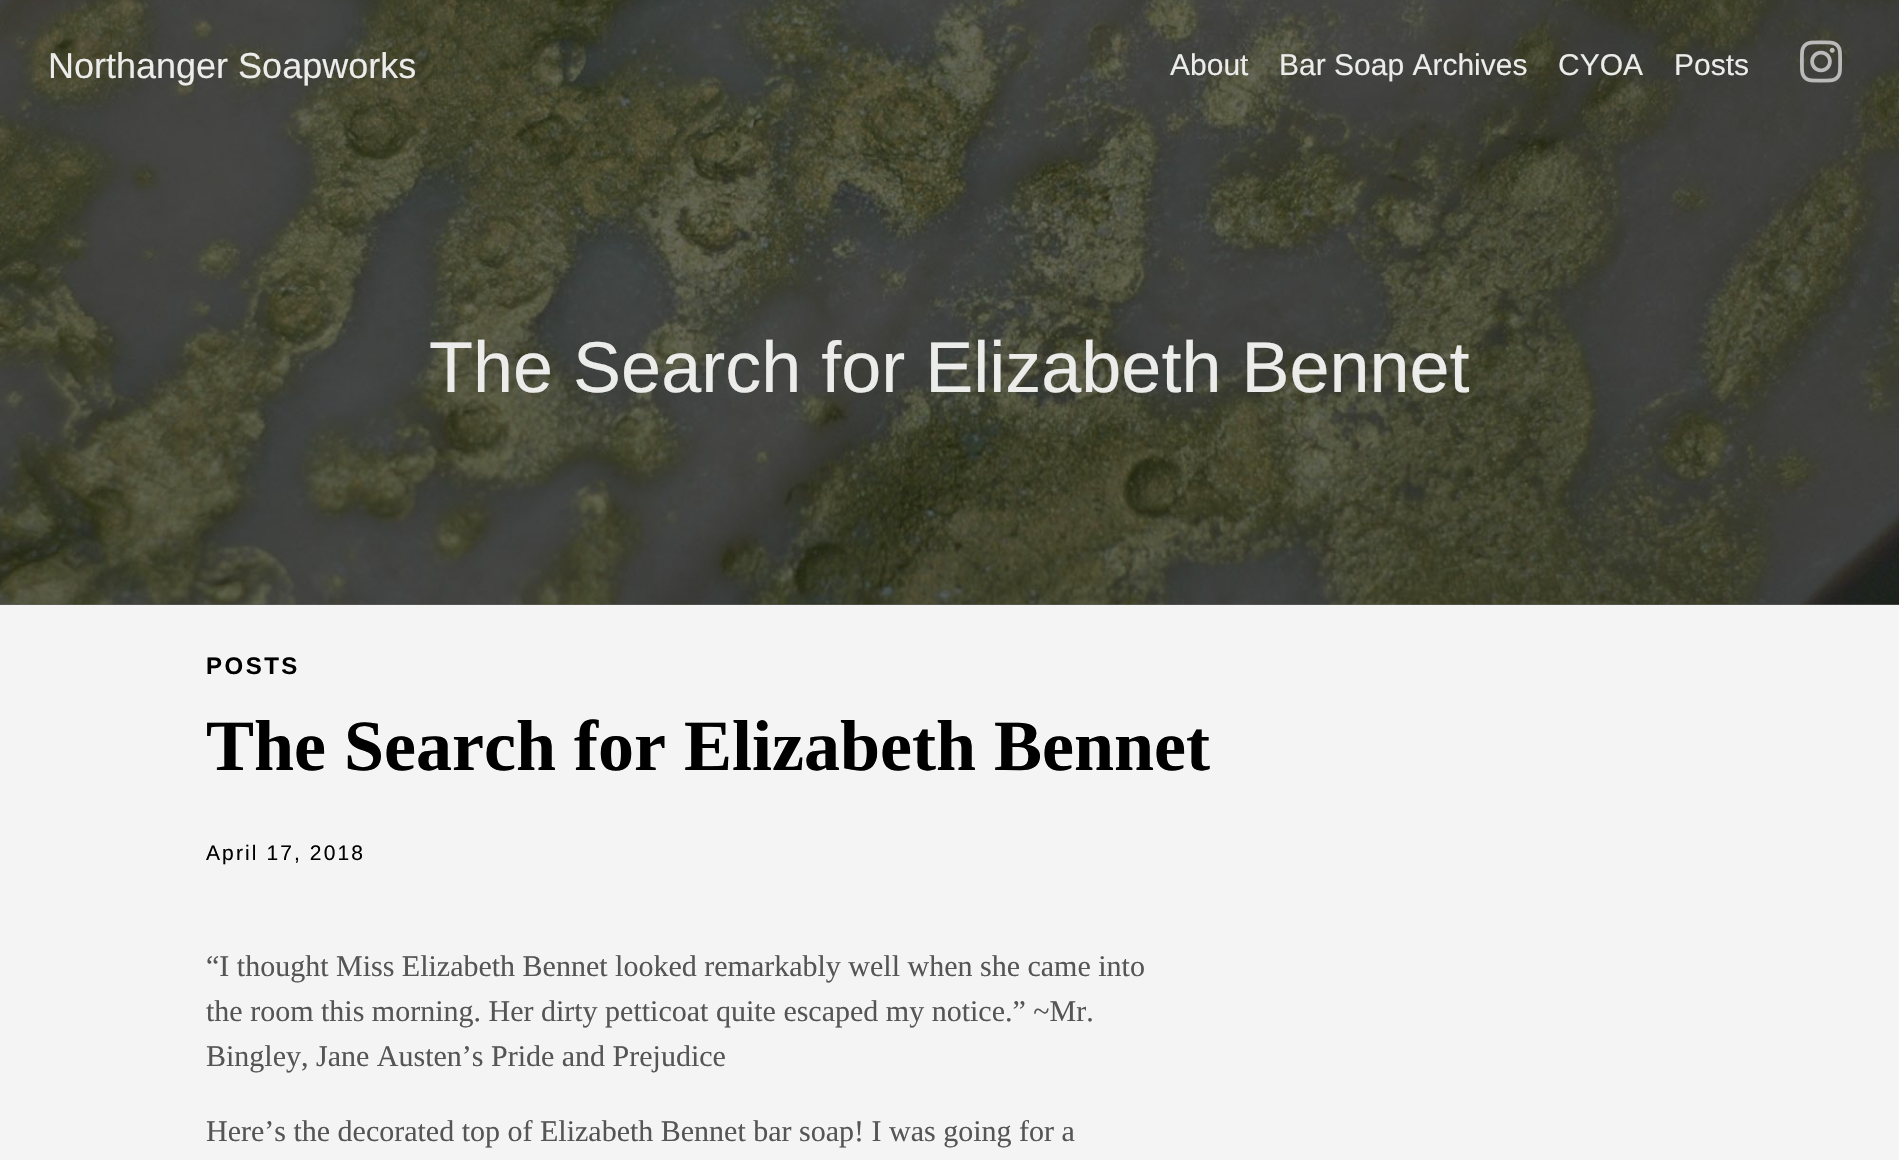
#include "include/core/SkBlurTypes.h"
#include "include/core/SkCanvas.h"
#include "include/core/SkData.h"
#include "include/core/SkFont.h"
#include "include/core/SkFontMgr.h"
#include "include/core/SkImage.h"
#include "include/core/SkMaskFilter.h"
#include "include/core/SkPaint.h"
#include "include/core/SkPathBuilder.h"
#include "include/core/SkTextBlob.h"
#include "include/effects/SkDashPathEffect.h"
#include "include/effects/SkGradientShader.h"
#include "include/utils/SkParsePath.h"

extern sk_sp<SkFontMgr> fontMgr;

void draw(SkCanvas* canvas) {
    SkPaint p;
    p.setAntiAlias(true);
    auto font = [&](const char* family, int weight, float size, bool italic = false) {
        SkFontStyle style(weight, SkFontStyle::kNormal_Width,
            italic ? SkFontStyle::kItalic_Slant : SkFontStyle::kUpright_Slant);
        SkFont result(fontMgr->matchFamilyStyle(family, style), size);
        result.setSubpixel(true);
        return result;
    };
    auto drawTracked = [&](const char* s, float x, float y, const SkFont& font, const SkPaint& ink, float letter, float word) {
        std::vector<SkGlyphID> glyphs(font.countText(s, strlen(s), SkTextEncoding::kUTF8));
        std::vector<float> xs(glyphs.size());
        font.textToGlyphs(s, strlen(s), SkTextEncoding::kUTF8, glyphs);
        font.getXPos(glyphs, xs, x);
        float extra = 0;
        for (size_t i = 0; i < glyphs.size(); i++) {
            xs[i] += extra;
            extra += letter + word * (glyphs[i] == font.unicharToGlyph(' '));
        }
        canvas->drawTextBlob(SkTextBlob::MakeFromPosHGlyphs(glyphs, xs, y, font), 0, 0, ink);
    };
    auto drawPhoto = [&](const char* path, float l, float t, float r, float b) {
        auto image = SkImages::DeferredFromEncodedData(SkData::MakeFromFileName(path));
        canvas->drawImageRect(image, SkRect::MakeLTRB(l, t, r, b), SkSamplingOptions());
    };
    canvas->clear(0xFFF4F4F4);
    p.setColor(0xFF626262);
    canvas->drawRect(SkRect::MakeLTRB(0, 604, 1899, 605), p);
    drawPhoto("media/1.png", 0, 0, 1899, 605);
    auto font1 = font("Liberation Sans", 400, 36);
    p.setColor(0xFFECECEB);
    canvas->drawString("Northanger Soapworks", 48, 78, font1, p);
    auto font2 = font("Liberation Sans", 400, 30);
    {
        const struct { const char* s; float x, y; } items[] = {
            {"About", 1170, 75},
            {"Bar Soap Archives", 1279, 75},
            {"CYOA", 1558, 75},
            {"Posts", 1674, 75},
        };
        for (auto [s, x, y] : items) {
            canvas->drawString(s, x, y, font2, p);
        }
    }
    drawPhoto("media/2.png", 1800, 40, 1842, 83);
    auto font3 = font("Liberation Sans", 400, 72);
    canvas->drawString("The Search for Elizabeth Bennet", 429, 392, font3, p);
    auto font4 = font("Liberation Sans", 700, 24);
    p.setColor(0xFF000000);
    drawTracked("POSTS", 206, 674, font4, p, 2.5f, 0);
    auto font5 = font("Liberation Serif", 700, 72);
    canvas->drawString("The Search for Elizabeth Bennet", 206, 770, font5, p);
    auto font6 = font("Liberation Sans", 400, 21);
    drawTracked("April 17, 2018", 206, 860, font6, p, 2.1f, 0);
    auto font7 = font("Liberation Serif", 400, 30);
    p.setColor(0xFF555555);
    {
        const struct { const char* s; float x, y; } items[] = {
            {"“I thought Miss Elizabeth Bennet looked remarkably well when she came into", 206, 976},
            {"the room this morning. Her dirty petticoat quite escaped my notice.” ~Mr.", 206, 1021},
            {"Bingley, Jane Austen’s Pride and Prejudice", 206, 1066},
            {"Here’s the decorated top of Elizabeth Bennet bar soap! I was going for a", 206, 1141},
        };
        for (auto [s, x, y] : items) {
            canvas->drawString(s, x, y, font7, p);
        }
    }
}
